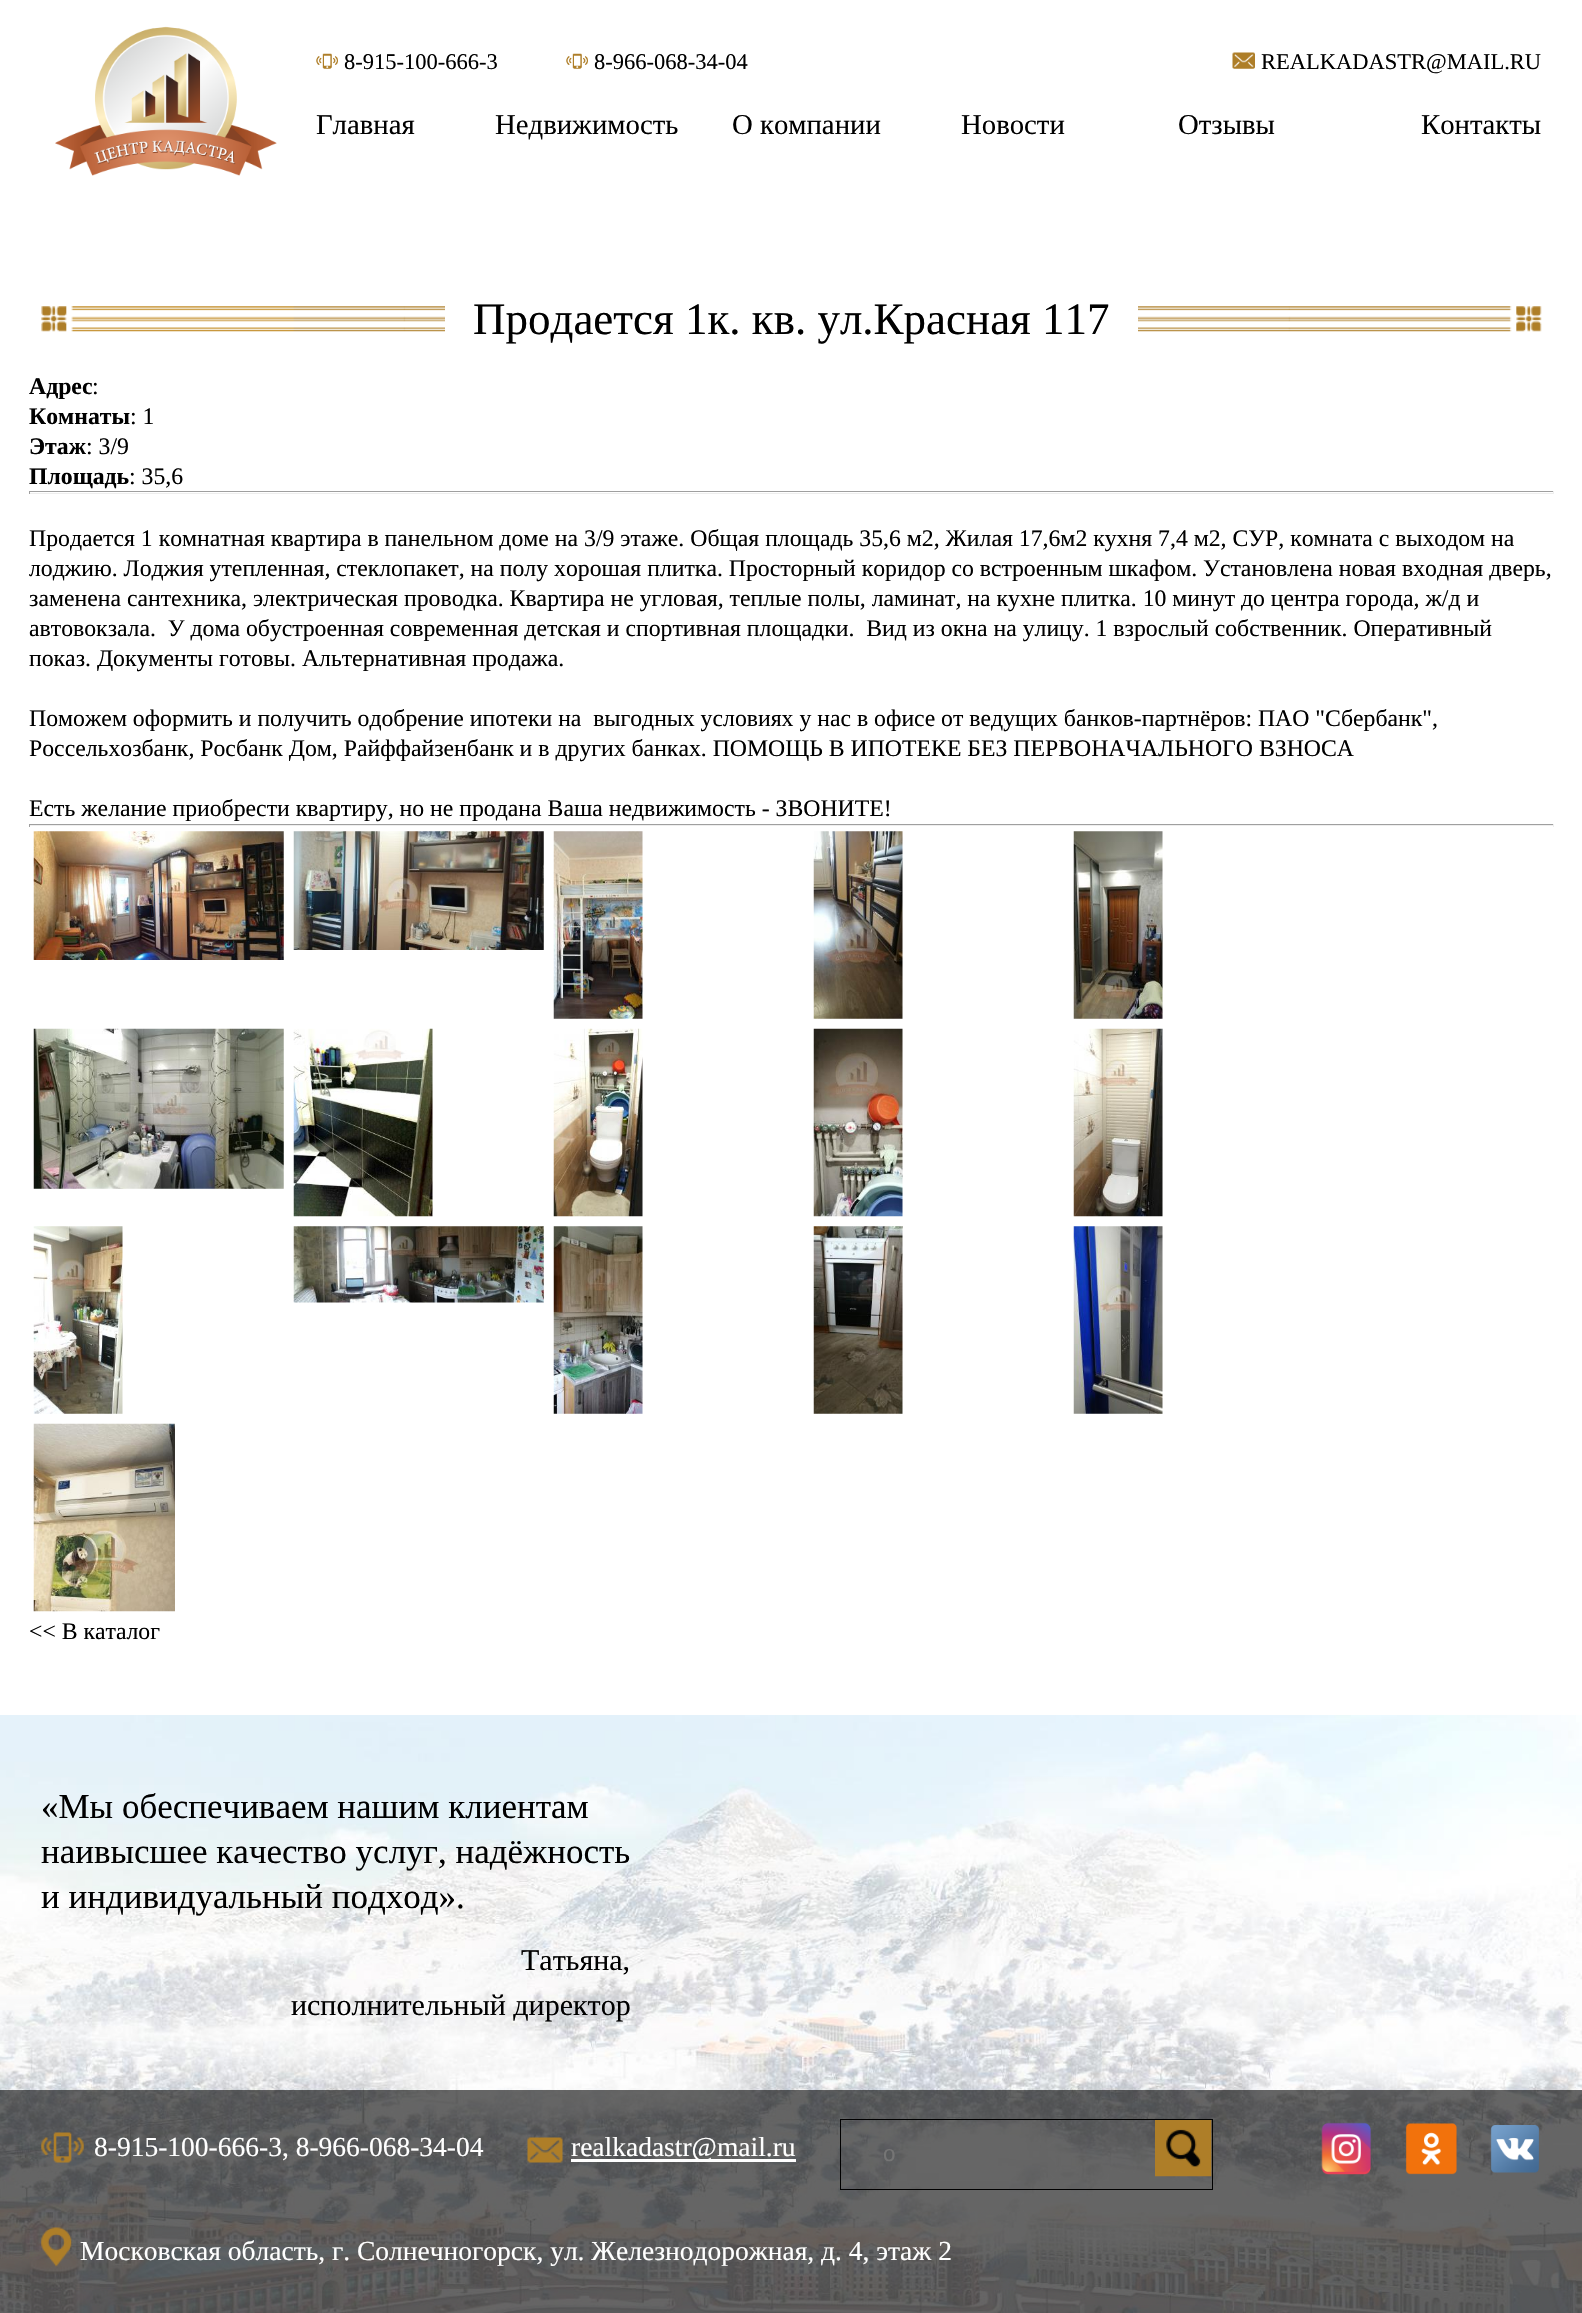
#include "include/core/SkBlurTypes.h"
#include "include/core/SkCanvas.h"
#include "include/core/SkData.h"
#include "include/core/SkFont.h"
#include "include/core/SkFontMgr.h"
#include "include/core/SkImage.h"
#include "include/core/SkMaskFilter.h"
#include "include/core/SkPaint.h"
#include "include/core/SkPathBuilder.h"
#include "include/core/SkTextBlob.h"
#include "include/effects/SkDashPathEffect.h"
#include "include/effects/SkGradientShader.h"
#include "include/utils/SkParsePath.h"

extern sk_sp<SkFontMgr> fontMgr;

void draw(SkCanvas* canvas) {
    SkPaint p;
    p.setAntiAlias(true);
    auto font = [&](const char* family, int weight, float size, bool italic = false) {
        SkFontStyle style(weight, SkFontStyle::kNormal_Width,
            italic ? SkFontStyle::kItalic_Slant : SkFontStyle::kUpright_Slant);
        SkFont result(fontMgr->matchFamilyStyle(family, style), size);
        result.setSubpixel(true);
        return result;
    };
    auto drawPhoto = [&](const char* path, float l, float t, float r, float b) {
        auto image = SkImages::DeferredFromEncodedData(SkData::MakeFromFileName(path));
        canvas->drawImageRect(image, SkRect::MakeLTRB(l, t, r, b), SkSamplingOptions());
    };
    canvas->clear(0xFFFFFFFF);
    drawPhoto("media/1.png", 55, 26, 277, 176);
    drawPhoto("media/2.png", 316, 53, 338, 69);
    auto font1 = font("Liberation Serif", 400, 22.5f);
    p.setColor(0xFF000000);
    canvas->drawString("8-915-100-666-3", 344, 69, font1, p);
    drawPhoto("media/2.png", 566, 53, 588, 69);
    canvas->drawString("8-966-068-34-04", 594, 69, font1, p);
    drawPhoto("media/3.png", 1232, 52, 1255, 69);
    canvas->drawString("REALKADASTR@MAIL.RU", 1261, 69, font1, p);
    auto font2 = font("Liberation Serif", 400, 28.75f);
    {
        const struct { const char* s; float x, y; } items[] = {
            {"Главная", 316, 134},
            {"Недвижимость", 495, 134},
            {"О компании", 732, 134},
            {"Новости", 961, 134},
            {"Отзывы", 1178, 134},
            {"Контакты", 1421, 134},
        };
        for (auto [s, x, y] : items) {
            canvas->drawString(s, x, y, font2, p);
        }
    }
    drawPhoto("media/4.png", 41, 306, 1542, 332);
    p.setColor(0xFFFFFFFF);
    canvas->drawRect(SkRect::MakeLTRB(445, 306, 1138, 332), p);
    auto font3 = font("Liberation Serif", 400, 45);
    p.setColor(0xFF000000);
    canvas->drawString("Продается 1к. кв. ул.Красная 117", 473, 334, font3, p);
    auto font4 = font("Liberation Serif", 700, 23.75f);
    canvas->drawString("Адрес", 29, 394, font4, p);
    auto font5 = font("Liberation Serif", 400, 23.75f);
    canvas->drawString(":", 92, 394, font5, p);
    canvas->drawString("Комнаты", 29, 424, font4, p);
    canvas->drawString(": 1", 130, 424, font5, p);
    canvas->drawString("Этаж", 29, 454, font4, p);
    canvas->drawString(": 3/9", 86, 454, font5, p);
    canvas->drawString("Площадь", 29, 484, font4, p);
    canvas->drawString(": 35,6", 129, 484, font5, p);
    {
        const struct { float l, t, r, b; SkColor color; } items[] = {
            {29, 491, 1554, 492, 0xFF9F9F9F},
            {1553, 491, 1554, 494, 0xFFEEEEEE},
            {29, 493, 1554, 494, 0xFFEEEEEE},
            {29, 491, 30, 494, 0xFF9F9F9F},
        };
        for (auto [l, t, r, b, color] : items) {
            p.setColor(color);
            canvas->drawRect(SkRect::MakeLTRB(l, t, r, b), p);
        }
    }
    p.setColor(0xFF000000);
    {
        const struct { const char* s; float x, y; } items[] = {
            {"Продается 1 комнатная квартира в панельном доме на 3/9 этаже. Общая площадь 35,6 м2, Жилая 17,6м2 кухня 7,4 м2, СУР, комната с выходом на", 29, 546},
            {"лоджию. Лоджия утепленная, стеклопакет, на полу хорошая плитка. Просторный коридор со встроенным шкафом. Установлена новая входная дверь,", 29, 576},
            {"заменена сантехника, электрическая проводка. Квартира не угловая, теплые полы, ламинат, на кухне плитка. 10 минут до центра города, ж/д и", 29, 606},
            {"автовокзала.  У дома обустроенная современная детская и спортивная площадки.  Вид из окна на улицу. 1 взрослый собственник. Оперативный", 29, 636},
            {"показ. Документы готовы. Альтернативная продажа.", 29, 666},
            {"Поможем оформить и получить одобрение ипотеки на  выгодных условиях у нас в офисе от ведущих банков-партнёров: ПАО \"Сбербанк\",", 29, 726},
            {"Россельхозбанк, Росбанк Дом, Райффайзенбанк и в других банках. ПОМОЩЬ В ИПОТЕКЕ БЕЗ ПЕРВОНАЧАЛЬНОГО ВЗНОСА", 29, 756},
            {"Есть желание приобрести квартиру, но не продана Ваша недвижимость - ЗВОНИТЕ!", 29, 816},
        };
        for (auto [s, x, y] : items) {
            canvas->drawString(s, x, y, font5, p);
        }
    }
    {
        const struct { float l, t, r, b; SkColor color; } items[] = {
            {29, 824, 1554, 825, 0xFF9F9F9F},
            {1553, 824, 1554, 827, 0xFFEEEEEE},
            {29, 825, 1554, 826, 0xFFEEEEEE},
            {29, 824, 30, 827, 0xFF9F9F9F},
        };
        for (auto [l, t, r, b, color] : items) {
            p.setColor(color);
            canvas->drawRect(SkRect::MakeLTRB(l, t, r, b), p);
        }
    }
    drawPhoto("media/5.png", 33, 831, 284, 960);
    drawPhoto("media/6.png", 293, 831, 544, 950);
    drawPhoto("media/7.png", 553, 831, 643, 1019);
    drawPhoto("media/8.png", 813, 831, 903, 1019);
    drawPhoto("media/9.png", 1073, 831, 1163, 1019);
    drawPhoto("media/10.png", 33, 1028, 284, 1189);
    drawPhoto("media/11.png", 293, 1028, 433, 1217);
    drawPhoto("media/12.png", 553, 1028, 643, 1217);
    drawPhoto("media/13.png", 813, 1028, 903, 1217);
    drawPhoto("media/14.png", 1073, 1028, 1163, 1217);
    drawPhoto("media/15.png", 33, 1226, 123, 1414);
    drawPhoto("media/16.png", 293, 1226, 544, 1303);
    drawPhoto("media/17.png", 553, 1226, 643, 1414);
    drawPhoto("media/18.png", 813, 1226, 903, 1414);
    drawPhoto("media/19.png", 1073, 1226, 1163, 1414);
    drawPhoto("media/20.png", 33, 1423, 175, 1612);
    p.setColor(0xFF000000);
    canvas->drawString("<< В каталог", 29, 1639, font5, p);
    drawPhoto("media/21.png", 0, 1715, 1582, 2313);
    auto font6 = font("Liberation Serif", 400, 35);
    {
        const struct { const char* s; float x, y; } items[] = {
            {"«Мы обеспечиваем нашим клиентам", 41, 1818},
            {"наивысшее качество услуг, надёжность", 41, 1863},
            {"и индивидуальный подход».", 41, 1908},
        };
        for (auto [s, x, y] : items) {
            canvas->drawString(s, x, y, font6, p);
        }
    }
    auto font7 = font("Liberation Serif", 400, 30);
    canvas->drawString("Татьяна,", 521, 1970, font7, p);
    canvas->drawString("исполнительный директор", 291, 2015, font7, p);
    p.setColor(0x99000000);
    canvas->drawRect(SkRect::MakeLTRB(0, 2090, 1582, 2313), p);
    drawPhoto("media/22.png", 41, 2132, 84, 2163);
    auto font8 = font("Liberation Serif", 400, 27.5f);
    p.setColor(0xFFFFFFFF);
    canvas->drawString("8-915-100-666-3, 8-966-068-34-04", 94, 2156, font8, p);
    drawPhoto("media/23.png", 527, 2137, 563, 2163);
    canvas->drawRect(SkRect::MakeLTRB(571, 2159, 796, 2162), p);
    canvas->drawString("realkadastr@mail.ru", 571, 2156, font8, p);
    p.setStyle(SkPaint::kStroke_Style);
    p.setStrokeWidth(1);
    p.setColor(0xFF000000);
    canvas->drawRect(SkRect::MakeLTRB(840.5f, 2119.5f, 1212.5f, 2189.5f), p);
    auto font9 = font("Liberation Sans", 400, 22.5f);
    p.setStyle(SkPaint::kFill_Style);
    p.setColor(0xFF757575);
    canvas->drawString("о", 883, 2161, font9, p);
    drawPhoto("media/24.png", 1155, 2120, 1212, 2177);
    drawPhoto("media/25.png", 1321, 2122, 1371, 2175);
    drawPhoto("media/26.png", 1405, 2123, 1457, 2175);
    drawPhoto("media/27.png", 1490, 2125, 1539, 2173);
    drawPhoto("media/28.png", 41, 2227, 72, 2267);
    p.setColor(0xFFFFFFFF);
    canvas->drawString("Московская область, г. Солнечногорск, ул. Железнодорожная, д. 4, этаж 2", 80, 2260, font8, p);
}
